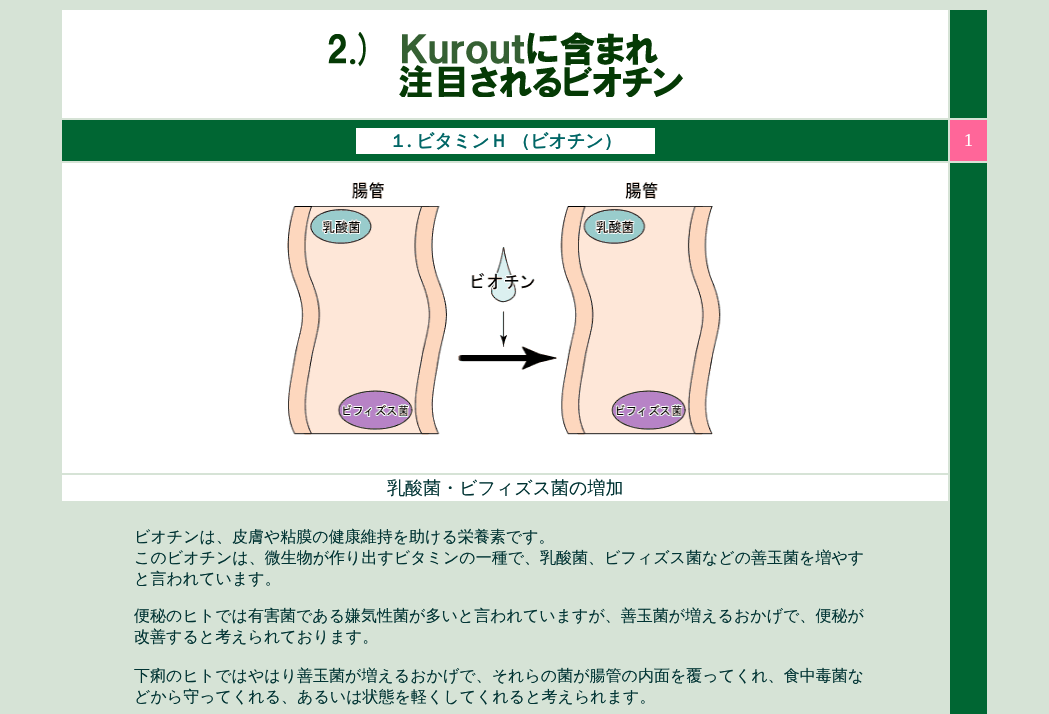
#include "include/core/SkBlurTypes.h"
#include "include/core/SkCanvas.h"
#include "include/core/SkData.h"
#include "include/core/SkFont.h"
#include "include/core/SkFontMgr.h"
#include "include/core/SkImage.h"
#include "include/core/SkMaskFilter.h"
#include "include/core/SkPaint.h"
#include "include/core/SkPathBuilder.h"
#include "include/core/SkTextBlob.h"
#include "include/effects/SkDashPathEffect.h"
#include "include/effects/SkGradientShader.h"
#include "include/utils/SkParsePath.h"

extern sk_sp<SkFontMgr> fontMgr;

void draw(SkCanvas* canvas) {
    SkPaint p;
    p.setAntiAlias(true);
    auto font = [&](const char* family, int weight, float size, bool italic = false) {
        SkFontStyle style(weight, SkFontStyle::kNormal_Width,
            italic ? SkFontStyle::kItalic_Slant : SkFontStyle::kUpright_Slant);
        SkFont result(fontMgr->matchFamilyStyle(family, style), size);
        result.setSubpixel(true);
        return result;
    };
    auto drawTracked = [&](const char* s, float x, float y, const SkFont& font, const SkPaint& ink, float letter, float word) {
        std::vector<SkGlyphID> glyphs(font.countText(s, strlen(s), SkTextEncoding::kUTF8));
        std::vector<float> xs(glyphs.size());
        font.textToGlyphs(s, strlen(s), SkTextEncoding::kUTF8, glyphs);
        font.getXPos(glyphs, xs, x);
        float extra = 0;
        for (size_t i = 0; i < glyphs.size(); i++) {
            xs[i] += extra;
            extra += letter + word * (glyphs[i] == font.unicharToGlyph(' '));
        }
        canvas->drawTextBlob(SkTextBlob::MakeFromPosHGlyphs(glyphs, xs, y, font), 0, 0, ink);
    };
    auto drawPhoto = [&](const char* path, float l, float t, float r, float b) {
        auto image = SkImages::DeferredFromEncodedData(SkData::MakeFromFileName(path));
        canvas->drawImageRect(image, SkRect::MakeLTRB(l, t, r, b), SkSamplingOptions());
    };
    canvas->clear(0xFFD6E3D6);
    p.setColor(0xFFFFFFFF);
    canvas->drawRect(SkRect::MakeLTRB(62, 10, 948, 118), p);
    drawPhoto("media/1.png", 328, 32, 683, 97);
    {
        const struct { float l, t, r, b; SkColor color; } items[] = {
            {950, 10, 987, 118, 0xFF006531},
            {62, 120, 948, 161, 0xFF006633},
            {356, 128, 655, 154, 0xFFFFFFFF},
        };
        for (auto [l, t, r, b, color] : items) {
            p.setColor(color);
            canvas->drawRect(SkRect::MakeLTRB(l, t, r, b), p);
        }
    }
    auto font1 = font("WenQuanYi Zen Hei", 700, 18);
    p.setColor(0xFF006666);
    canvas->drawString("１", 389, 147, font1, p);
    auto font2 = font("Liberation Serif", 700, 18);
    canvas->drawString(".", 407, 147, font2, p);
    drawTracked("ビタミンＨ （ビオチン）", 416, 147, font1, p, 0, -1);
    p.setColor(0xFFFF6699);
    canvas->drawRect(SkRect::MakeLTRB(950, 120, 987, 161), p);
    auto font3 = font("Liberation Serif", 400, 18);
    p.setColor(0xFFFFFFFF);
    canvas->drawString("1", 964, 146, font3, p);
    canvas->drawRect(SkRect::MakeLTRB(62, 163, 948, 473), p);
    drawPhoto("media/2.png", 287, 182, 721, 435);
    p.setColor(0xFF006633);
    canvas->drawRect(SkRect::MakeLTRB(950, 163, 987, 714), p);
    p.setColor(0xFFFFFFFF);
    canvas->drawRect(SkRect::MakeLTRB(62, 475, 948, 501), p);
    auto font4 = font("WenQuanYi Zen Hei", 500, 18);
    p.setColor(0xFF003333);
    canvas->drawString("乳酸菌・ビフィズス菌の増加", 387, 494, font4, p);
    auto font5 = font("WenQuanYi Zen Hei", 500, 16);
    {
        const struct { const char* s; float x, y; } items[] = {
            {"ビオチンは、皮膚や粘膜の健康維持を助ける栄養素です。", 134, 542},
            {"このビオチンは、微生物が作り出すビタミンの一種で、乳酸菌、ビフィズス菌などの善玉菌を増やす", 134, 563},
            {"と言われています。", 134, 584},
            {"便秘のヒトでは有害菌である嫌気性菌が多いと言われていますが、善玉菌が増えるおかげで、便秘が", 134, 621},
            {"改善すると考えられております。", 134, 642},
            {"下痢のヒトではやはり善玉菌が増えるおかげで、それらの菌が腸管の内面を覆ってくれ、食中毒菌な", 134, 681},
            {"どから守ってくれる、あるいは状態を軽くしてくれると考えられます。", 134, 702},
        };
        for (auto [s, x, y] : items) {
            canvas->drawString(s, x, y, font5, p);
        }
    }
}
